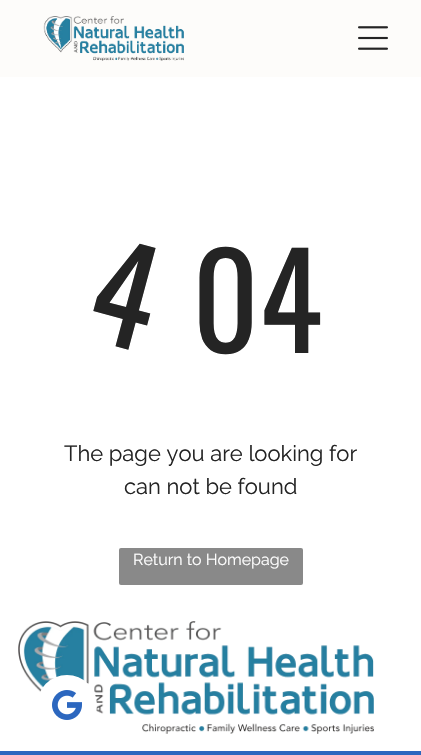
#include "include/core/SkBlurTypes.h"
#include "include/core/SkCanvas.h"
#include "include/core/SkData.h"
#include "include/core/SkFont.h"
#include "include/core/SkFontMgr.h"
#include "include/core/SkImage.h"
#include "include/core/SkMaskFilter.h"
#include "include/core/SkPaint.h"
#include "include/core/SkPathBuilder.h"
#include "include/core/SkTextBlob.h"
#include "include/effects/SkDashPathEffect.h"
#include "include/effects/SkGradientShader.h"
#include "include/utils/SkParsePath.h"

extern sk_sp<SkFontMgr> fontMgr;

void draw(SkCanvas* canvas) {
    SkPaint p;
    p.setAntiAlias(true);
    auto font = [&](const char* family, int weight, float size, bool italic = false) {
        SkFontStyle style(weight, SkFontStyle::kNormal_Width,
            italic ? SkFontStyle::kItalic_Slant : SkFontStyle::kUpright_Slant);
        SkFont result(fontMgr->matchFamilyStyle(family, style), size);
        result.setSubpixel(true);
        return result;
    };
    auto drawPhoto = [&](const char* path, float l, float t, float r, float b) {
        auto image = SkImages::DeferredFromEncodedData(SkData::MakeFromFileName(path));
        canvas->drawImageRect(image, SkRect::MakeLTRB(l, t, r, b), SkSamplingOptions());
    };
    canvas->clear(0xFFFFFFFF);
    p.setColor(0xFFFDFCFA);
    canvas->drawRect(SkRect::MakeLTRB(0, 0, 421, 77), p);
    drawPhoto("media/1.png", 43, 16, 184, 61);
    drawPhoto("media/2.png", 358, 26, 388, 50);
    auto font1 = font("Oswald", 400, 130);
    p.setColor(0xFF242424);
    canvas->save();
    canvas->rotate(15, 81, 337);
    canvas->drawString("4", 81, 337, font1, p);
    canvas->restore();
    canvas->drawString("04", 192, 353, font1, p);
    auto font2 = font("Raleway", 400, 22);
    canvas->drawString("The page you are looking for", 64, 461, font2, p);
    canvas->drawString("can not be found", 124, 494, font2, p);
    p.setColor(0xFF898989);
    canvas->drawRoundRect(SkRect::MakeLTRB(119, 548, 303, 585), 2, 2, p);
    auto font3 = font("Raleway", 400, 16);
    p.setColor(0xFFFFFFFF);
    canvas->drawString("Return to Homepage", 133, 565, font3, p);
    p.setColor(0xFF2C67BF);
    canvas->drawRect(SkRect::MakeLTRB(0, 751, 421, 755), p);
    drawPhoto("media/3.png", 18, 621, 374, 734);
    p.setColor(0xFFFFFFFF);
    canvas->drawCircle(67, 705, 30, p);
    drawPhoto("media/4.png", 52, 690, 82, 720);
}
